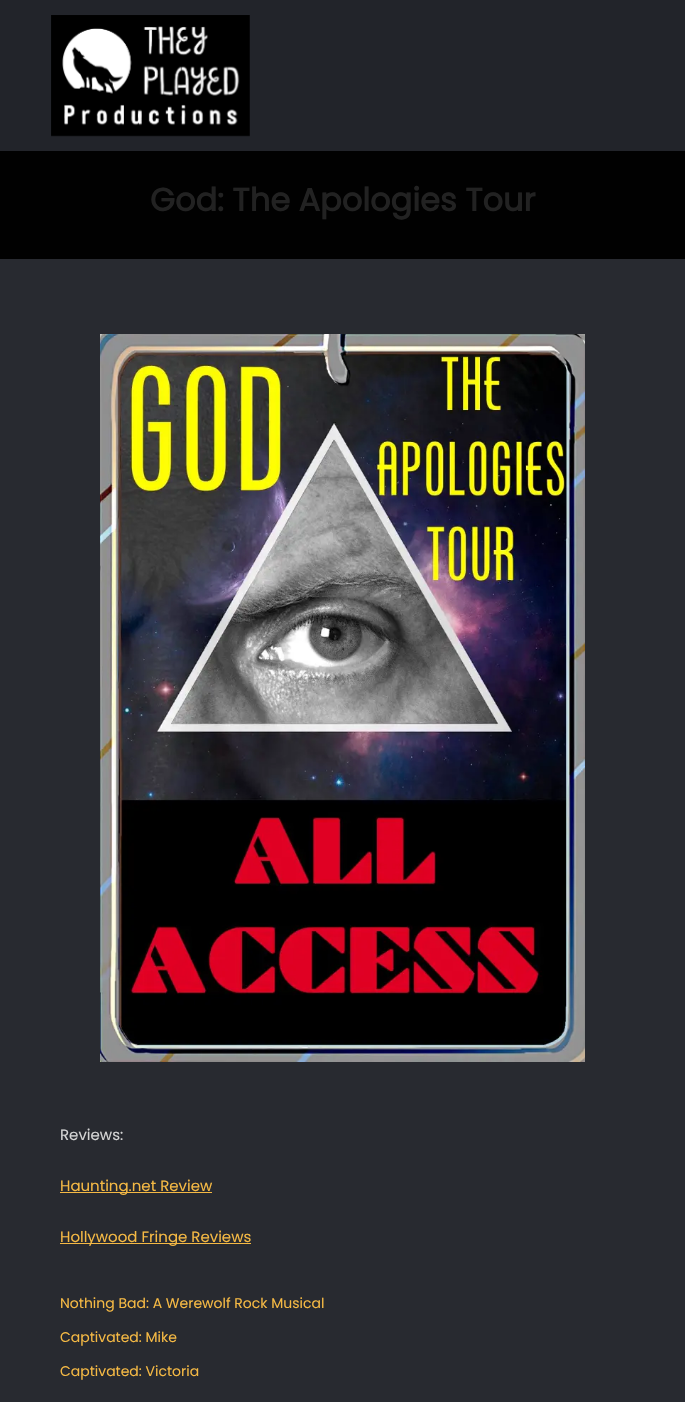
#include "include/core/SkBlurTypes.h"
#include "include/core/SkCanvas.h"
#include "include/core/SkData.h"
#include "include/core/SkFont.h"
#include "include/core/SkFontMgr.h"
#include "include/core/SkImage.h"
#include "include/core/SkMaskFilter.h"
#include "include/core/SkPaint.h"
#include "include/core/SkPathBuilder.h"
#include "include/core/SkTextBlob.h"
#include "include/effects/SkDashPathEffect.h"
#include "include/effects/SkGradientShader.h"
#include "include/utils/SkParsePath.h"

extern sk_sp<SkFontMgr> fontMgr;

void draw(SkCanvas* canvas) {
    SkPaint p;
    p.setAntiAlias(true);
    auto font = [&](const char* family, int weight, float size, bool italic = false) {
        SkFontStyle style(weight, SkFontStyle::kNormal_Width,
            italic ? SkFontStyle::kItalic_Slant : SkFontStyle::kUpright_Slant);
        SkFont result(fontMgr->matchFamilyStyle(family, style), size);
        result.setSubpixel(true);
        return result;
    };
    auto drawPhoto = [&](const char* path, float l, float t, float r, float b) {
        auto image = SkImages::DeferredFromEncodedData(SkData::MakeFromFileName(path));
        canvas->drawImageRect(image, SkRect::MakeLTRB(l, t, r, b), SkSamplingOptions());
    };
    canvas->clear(0xFF010101);
    p.setColor(0xFF22242A);
    canvas->drawRect(SkRect::MakeLTRB(0, 0, 685, 151), p);
    drawPhoto("media/1.png", 51, 15, 250, 137);
    auto font1 = font("Poppins", 700, 32);
    p.setColor(0xFF222222);
    canvas->drawString("God: The Apologies Tour", 150, 211, font1, p);
    p.setColor(0xFF282A30);
    canvas->drawRect(SkRect::MakeLTRB(0, 259, 685, 1402), p);
    drawPhoto("media/2.png", 100, 334, 585, 1062);
    auto font2 = font("Poppins", 400, 15);
    p.setColor(0xFFD4D4D4);
    canvas->drawString("Reviews:", 60, 1140, font2, p);
    p.setColor(0xFFF5B944);
    canvas->drawRect(SkRect::MakeLTRB(60, 1192, 212, 1193), p);
    canvas->drawString("Haunting.net Review", 60, 1191, font2, p);
    canvas->drawRect(SkRect::MakeLTRB(60, 1243, 251, 1244), p);
    canvas->drawString("Hollywood Fringe Reviews", 60, 1242, font2, p);
    auto font3 = font("Poppins", 400, 14);
    {
        const struct { const char* s; float x, y; } items[] = {
            {"Nothing Bad: A Werewolf Rock Musical", 60, 1308},
            {"Captivated: Mike", 60, 1342},
            {"Captivated: Victoria", 60, 1376},
        };
        for (auto [s, x, y] : items) {
            canvas->drawString(s, x, y, font3, p);
        }
    }
}
